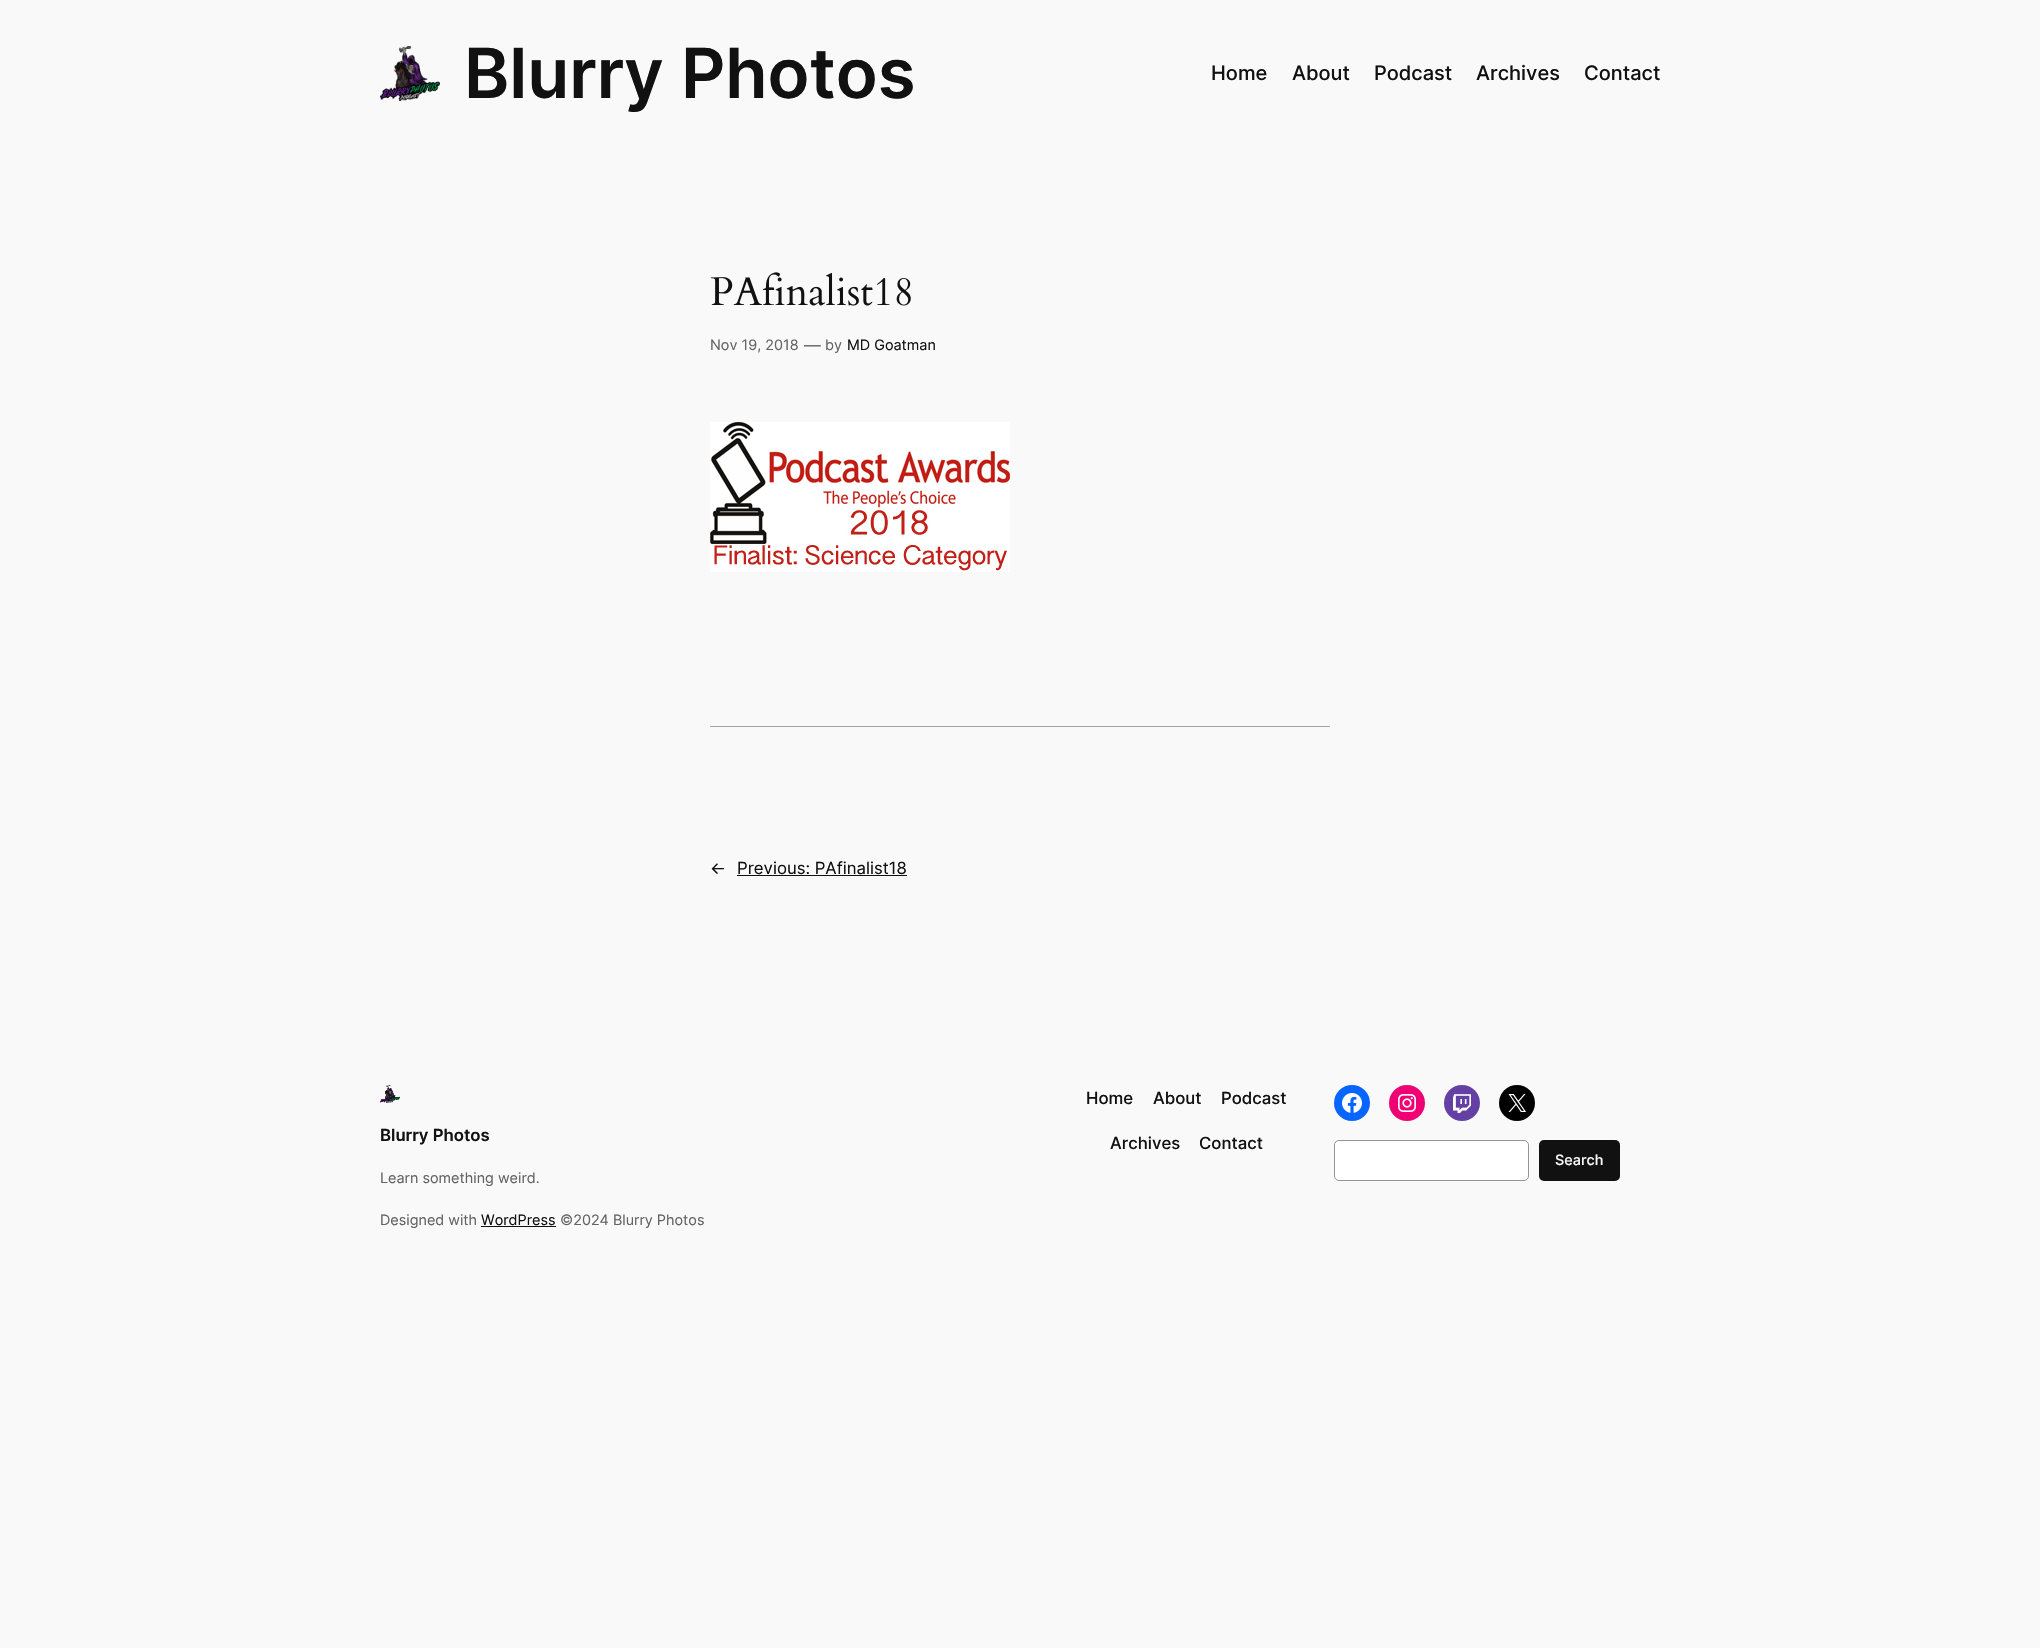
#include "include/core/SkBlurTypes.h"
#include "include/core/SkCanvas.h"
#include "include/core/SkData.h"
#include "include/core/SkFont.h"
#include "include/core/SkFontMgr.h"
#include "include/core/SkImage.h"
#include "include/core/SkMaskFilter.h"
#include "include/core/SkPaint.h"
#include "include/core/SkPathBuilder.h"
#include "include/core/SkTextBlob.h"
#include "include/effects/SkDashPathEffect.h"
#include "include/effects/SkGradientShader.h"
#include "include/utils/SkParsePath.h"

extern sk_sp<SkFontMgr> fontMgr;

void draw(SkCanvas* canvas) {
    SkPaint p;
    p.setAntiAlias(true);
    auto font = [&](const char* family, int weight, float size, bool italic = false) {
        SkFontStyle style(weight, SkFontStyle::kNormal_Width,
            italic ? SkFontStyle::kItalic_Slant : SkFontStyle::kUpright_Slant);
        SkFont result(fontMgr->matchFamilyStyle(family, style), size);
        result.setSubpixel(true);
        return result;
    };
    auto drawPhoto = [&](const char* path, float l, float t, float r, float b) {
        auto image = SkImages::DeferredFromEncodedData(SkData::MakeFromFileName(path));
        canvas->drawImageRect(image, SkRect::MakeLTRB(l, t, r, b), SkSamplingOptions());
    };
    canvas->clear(0xFFF9F9F9);
    drawPhoto("media/1.png", 380, 46, 440, 101);
    auto font1 = font("Inter", 600, 69);
    p.setColor(0xFF111111);
    canvas->drawString("Blurry Photos", 464, 98, font1, p);
    auto font2 = font("Inter", 500, 20);
    {
        const struct { const char* s; float x, y; } items[] = {
            {"Home", 1211, 80},
            {"About", 1292, 80},
            {"Podcast", 1374, 80},
            {"Archives", 1476, 80},
            {"Contact", 1584, 80},
        };
        for (auto [s, x, y] : items) {
            canvas->drawString(s, x, y, font2, p);
        }
    }
    drawPhoto("media/2.png", 710, 272, 911, 306);
    auto font3 = font("Inter", 400, 14.4f);
    p.setColor(0xFF636363);
    canvas->drawString("Nov 19, 2018", 710, 350, font3, p);
    auto font4 = font("Inter", 400, 16.75f);
    canvas->drawString("—", 804, 351, font4, p);
    canvas->drawString("by", 825, 350, font3, p);
    p.setColor(0xFF111111);
    canvas->drawString("MD Goatman", 847, 350, font3, p);
    drawPhoto("media/3.png", 710, 422, 1010, 572);
    p.setColor(0xFFA4A4A4);
    canvas->drawRect(SkRect::MakeLTRB(710, 726, 1330, 727), p);
    p.setColor(0xFF111111);
    canvas->drawString("←", 710, 874, font4, p);
    canvas->drawString("Previous: PAfinalist18", 737, 874, font4, p);
    canvas->drawRect(SkRect::MakeLTRB(737, 875, 907, 876), p);
    auto font5 = font("Inter", 500, 16.75f);
    {
        const struct { const char* s; float x, y; } items[] = {
            {"Home", 1086, 1104},
            {"About", 1153, 1104},
            {"Podcast", 1221, 1104},
            {"Archives", 1110, 1149},
            {"Contact", 1199, 1149},
        };
        for (auto [s, x, y] : items) {
            canvas->drawString(s, x, y, font5, p);
        }
    }
    drawPhoto("media/4.png", 380, 1085, 400, 1103);
    auto font6 = font("Inter", 600, 16.75f);
    canvas->drawString("Blurry Photos", 380, 1141, font6, p);
    p.setColor(0xFF636363);
    canvas->drawString("Learn something weird.", 380, 1183, font3, p);
    p.setColor(0xFF0866FF);
    canvas->drawCircle(1352, 1103, 18, p);
    drawPhoto("media/5.png", 1342, 1093, 1362, 1113);
    p.setColor(0xFFF00075);
    canvas->drawCircle(1407, 1103, 18, p);
    drawPhoto("media/6.png", 1398, 1094, 1416, 1112);
    p.setColor(0xFF6440A4);
    canvas->drawCircle(1462, 1103, 18, p);
    drawPhoto("media/7.png", 1453, 1094, 1471, 1113);
    p.setColor(0xFF000000);
    canvas->drawCircle(1517, 1103, 18, p);
    drawPhoto("media/8.png", 1508, 1094, 1526, 1112);
    p.setColor(0xFFFFFFFF);
    canvas->drawRoundRect(SkRect::MakeLTRB(1334.5f, 1140.5f, 1528.5f, 1180.5f), 4.5f, 4.5f, p);
    p.setStyle(SkPaint::kStroke_Style);
    p.setStrokeWidth(1);
    p.setColor(0xFF949494);
    canvas->drawRoundRect(SkRect::MakeLTRB(1334.5f, 1140.5f, 1528.5f, 1180.5f), 4.5f, 4.5f, p);
    p.setStyle(SkPaint::kFill_Style);
    p.setColor(0xFF111111);
    canvas->drawRoundRect(SkRect::MakeLTRB(1539, 1140, 1620, 1181), 5, 5, p);
    auto font7 = font("Inter", 500, 14.4f);
    p.setColor(0xFFF9F9F9);
    canvas->drawString("Search", 1555, 1165, font7, p);
    p.setColor(0xFF636363);
    canvas->drawString("Designed with", 380, 1225, font3, p);
    p.setColor(0xFF111111);
    canvas->drawString("WordPress", 481, 1225, font3, p);
    canvas->drawRect(SkRect::MakeLTRB(481, 1226, 556, 1227), p);
    p.setColor(0xFF636363);
    canvas->drawString("©2024 Blurry Photos", 560, 1225, font3, p);
}
